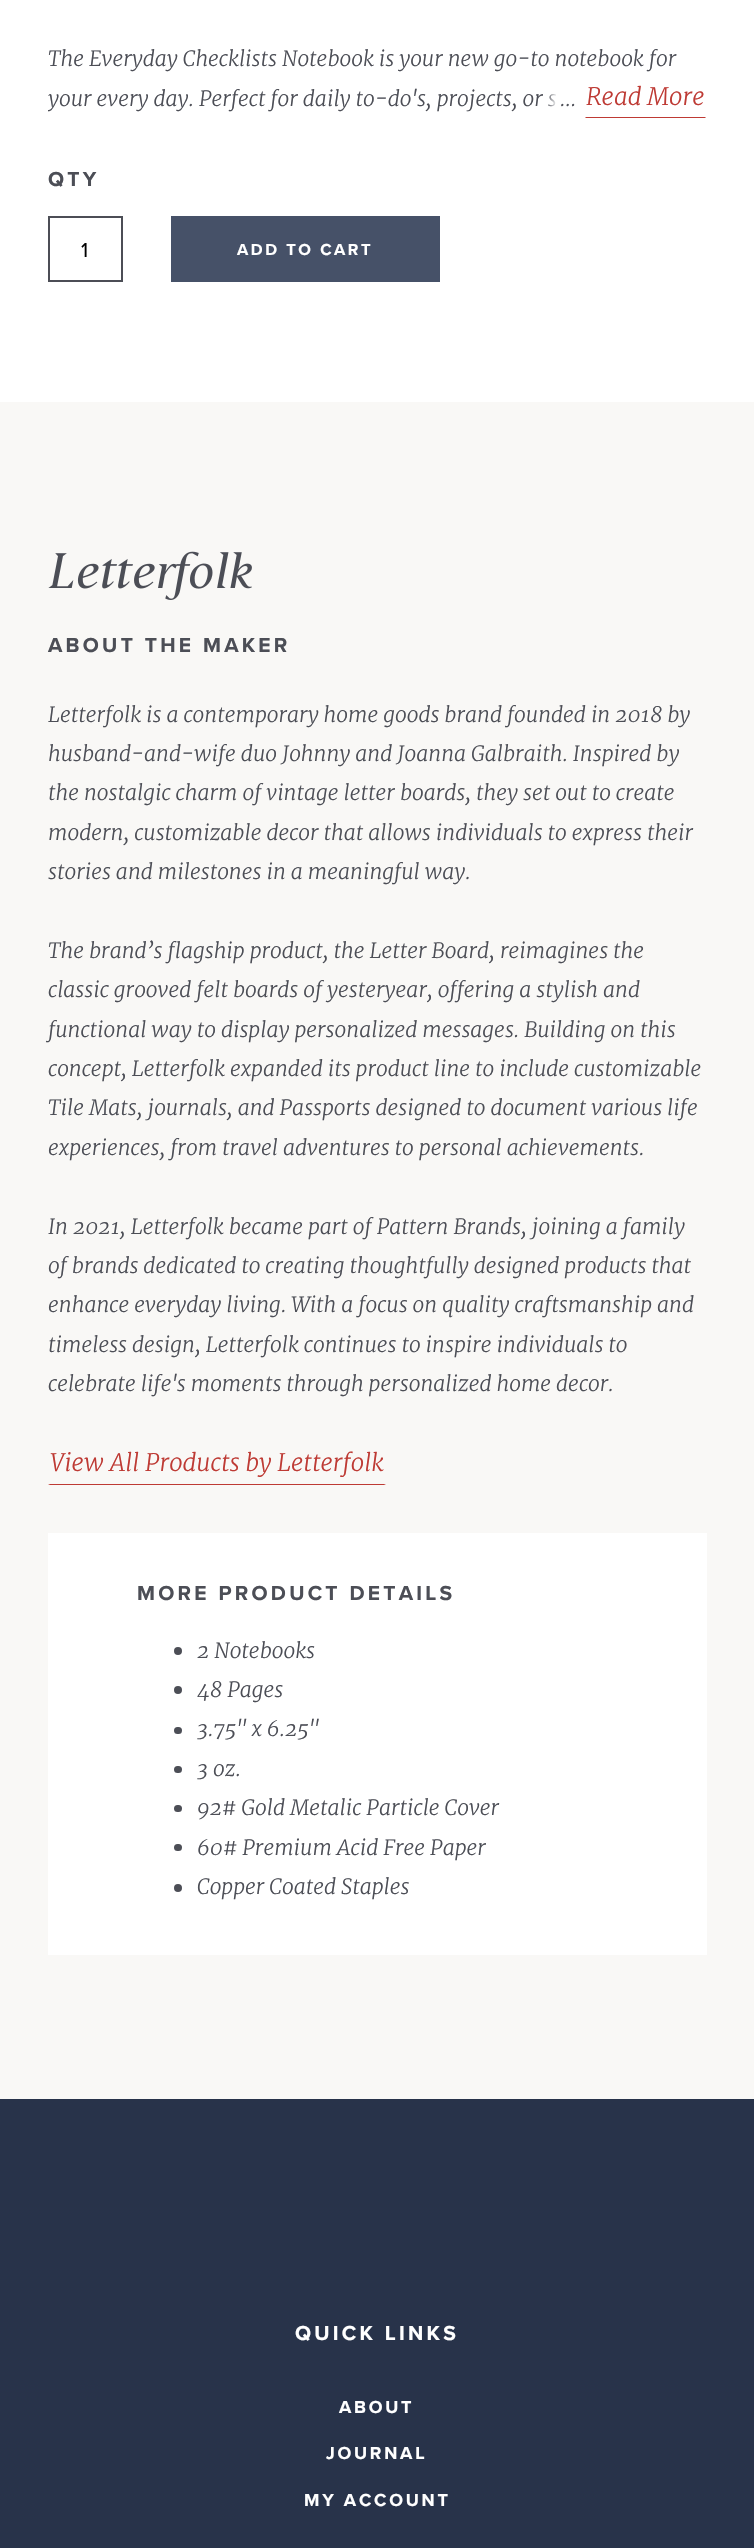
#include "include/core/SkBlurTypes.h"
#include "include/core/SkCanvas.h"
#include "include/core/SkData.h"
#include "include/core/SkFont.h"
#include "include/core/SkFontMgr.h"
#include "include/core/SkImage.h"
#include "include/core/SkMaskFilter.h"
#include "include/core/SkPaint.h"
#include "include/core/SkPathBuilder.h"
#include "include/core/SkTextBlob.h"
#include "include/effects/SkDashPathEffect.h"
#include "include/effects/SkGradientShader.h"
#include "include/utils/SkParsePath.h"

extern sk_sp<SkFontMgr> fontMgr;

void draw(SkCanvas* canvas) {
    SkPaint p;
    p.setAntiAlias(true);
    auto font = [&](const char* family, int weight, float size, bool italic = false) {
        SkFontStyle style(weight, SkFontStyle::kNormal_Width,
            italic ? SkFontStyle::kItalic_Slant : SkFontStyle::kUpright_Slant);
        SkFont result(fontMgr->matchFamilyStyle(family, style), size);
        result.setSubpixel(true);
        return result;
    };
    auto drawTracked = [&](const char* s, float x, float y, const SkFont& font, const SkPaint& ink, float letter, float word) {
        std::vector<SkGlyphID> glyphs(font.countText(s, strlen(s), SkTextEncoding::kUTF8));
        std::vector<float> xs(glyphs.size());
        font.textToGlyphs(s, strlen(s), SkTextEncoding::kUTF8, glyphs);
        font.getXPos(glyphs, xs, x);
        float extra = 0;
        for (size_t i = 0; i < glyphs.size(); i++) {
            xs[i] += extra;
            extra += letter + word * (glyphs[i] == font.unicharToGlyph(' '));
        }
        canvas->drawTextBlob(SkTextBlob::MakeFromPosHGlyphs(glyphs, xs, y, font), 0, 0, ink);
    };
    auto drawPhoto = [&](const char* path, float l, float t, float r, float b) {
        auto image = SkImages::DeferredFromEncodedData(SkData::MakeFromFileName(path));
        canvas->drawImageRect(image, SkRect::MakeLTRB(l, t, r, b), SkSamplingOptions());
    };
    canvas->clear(0xFFFFFFFF);
    auto font1 = font("Merriweather", 300, 21, true);
    p.setColor(0xFF4C4E56);
    canvas->drawString("The Everyday Checklists Notebook is your new go-to notebook for", 48, 66, font1, p);
    canvas->save();
    canvas->clipRect(SkRect::MakeLTRB(48, 39, 707, 119));
    canvas->drawString("your every day. Perfect for daily to-do's, projects, or s", 48, 106, font1, p);
    canvas->restore();
    {
        const SkColor colors[] = {0x00FFFFFF, 0xFFFFFFFF};
        const float stops[] = {0, 0.07f};
        const SkPoint ends[] = {{546, 98}, {707, 98}};
        p.setShader(SkGradientShader::MakeLinear(ends, colors, stops, 2, SkTileMode::kClamp));
        p.setAlpha(255);
    }
    canvas->drawRect(SkRect::MakeLTRB(548, 94, 556, 107), p);
    p.setShader(nullptr);
    p.setColor(0xFF4C4E56);
    canvas->drawString("…", 560, 106, font1, p);
    p.setColor(0xFFBE3A34);
    canvas->drawPath(SkPathBuilder().moveTo(706, 118).lineTo(585, 118).lineTo(586, 117).lineTo(705, 117).close().detach(), p);
    auto font2 = font("Merriweather", 300, 24, true);
    canvas->drawString("Read More", 586, 105, font2, p);
    auto font3 = font("Proxima Nova", 700, 21);
    p.setColor(0xFF4C4E56);
    drawTracked("QTY", 48, 186, font3, p, 3.25f, 0);
    p.setStyle(SkPaint::kStroke_Style);
    p.setStrokeWidth(2);
    canvas->drawRect(SkRect::MakeLTRB(49, 217, 122, 281), p);
    auto font4 = font("Proxima Nova", 400, 21);
    p.setStyle(SkPaint::kFill_Style);
    p.setColor(0xFF000000);
    drawTracked("1", 81, 257, font4, p, 1, 0);
    p.setColor(0xFF465168);
    canvas->drawRect(SkRect::MakeLTRB(171, 216, 440, 282), p);
    auto font5 = font("Proxima Nova", 700, 16.5f);
    p.setColor(0xFFFFFFFF);
    drawTracked("ADD TO CART", 237, 255, font5, p, 2.5f, 0);
    p.setColor(0xFFF9F8F6);
    canvas->drawRect(SkRect::MakeLTRB(0, 402, 754, 2099), p);
    drawPhoto("media/1.png", 48, 551, 252, 600);
    p.setColor(0xFF4C4E56);
    drawTracked("ABOUT THE MAKER", 48, 652, font3, p, 3.25f, 0);
    {
        const struct { const char* s; float x, y; } items[] = {
            {"Letterfolk is a contemporary home goods brand founded in 2018 by", 48, 722},
            {"husband-and-wife duo Johnny and Joanna Galbraith. Inspired by", 48, 761},
            {"the nostalgic charm of vintage letter boards, they set out to create", 48, 800},
            {"modern, customizable decor that allows individuals to express their", 48, 840},
            {"stories and milestones in a meaningful way.", 48, 879},
            {"The brand’s flagship product, the Letter Board, reimagines the", 48, 958},
            {"classic grooved felt boards of yesteryear, offering a stylish and", 48, 997},
            {"functional way to display personalized messages. Building on this", 48, 1037},
            {"concept, Letterfolk expanded its product line to include customizable", 48, 1076},
            {"Tile Mats, journals, and Passports designed to document various life", 48, 1115},
            {"experiences, from travel adventures to personal achievements.", 48, 1155},
            {"In 2021, Letterfolk became part of Pattern Brands, joining a family", 48, 1234},
            {"of brands dedicated to creating thoughtfully designed products that", 48, 1273},
            {"enhance everyday living. With a focus on quality craftsmanship and", 48, 1312},
            {"timeless design, Letterfolk continues to inspire individuals to", 48, 1352},
            {"celebrate life's moments through personalized home decor.", 48, 1391},
        };
        for (auto [s, x, y] : items) {
            canvas->drawString(s, x, y, font1, p);
        }
    }
    p.setColor(0xFFBE3A34);
    canvas->drawPath(SkPathBuilder().moveTo(386, 1485).lineTo(48, 1485).lineTo(50, 1484).lineTo(384, 1484).close().detach(), p);
    canvas->drawString("View All Products by Letterfolk", 50, 1471, font2, p);
    p.setColor(0xFFFFFFFF);
    canvas->drawRect(SkRect::MakeLTRB(48, 1533, 707, 1955), p);
    p.setColor(0xFF4C4E56);
    drawTracked("MORE PRODUCT DETAILS", 137, 1600, font3, p, 3.25f, 0);
    canvas->drawCircle(178, 1651, 4, p);
    canvas->drawString("2 Notebooks", 197, 1658, font1, p);
    canvas->drawCircle(178, 1690, 4, p);
    canvas->drawString("48 Pages", 197, 1697, font1, p);
    canvas->drawRoundRect(SkRect::MakeLTRB(174, 1727, 182, 1734), 3.5f, 3.5f, p);
    canvas->drawString("3.75\" x 6.25\"", 197, 1736, font1, p);
    canvas->drawRoundRect(SkRect::MakeLTRB(174, 1766, 182, 1773), 3.5f, 3.5f, p);
    canvas->drawString("3 oz.", 197, 1776, font1, p);
    canvas->drawRoundRect(SkRect::MakeLTRB(174, 1805, 182, 1812), 3.5f, 3.5f, p);
    canvas->drawString("92# Gold Metalic Particle Cover", 197, 1815, font1, p);
    canvas->drawRoundRect(SkRect::MakeLTRB(174, 1844, 182, 1851), 3.5f, 3.5f, p);
    canvas->drawString("60# Premium Acid Free Paper", 197, 1855, font1, p);
    canvas->drawCircle(178, 1888, 4, p);
    canvas->drawString("Copper Coated Staples", 197, 1894, font1, p);
    p.setColor(0xFF28334A);
    canvas->drawRect(SkRect::MakeLTRB(0, 2099, 754, 2548), p);
    p.setColor(0xFFFFFFFF);
    drawTracked("QUICK LINKS", 295, 2340, font3, p, 3.25f, 0);
    auto font6 = font("Proxima Nova", 700, 18);
    {
        const struct { const char* s; float x, y; } items[] = {
            {"ABOUT", 339, 2413},
            {"JOURNAL", 326, 2459},
            {"MY ACCOUNT", 304, 2506},
        };
        for (auto [s, x, y] : items) {
            drawTracked(s, x, y, font6, p, 2.75f, 0);
        }
    }
}
